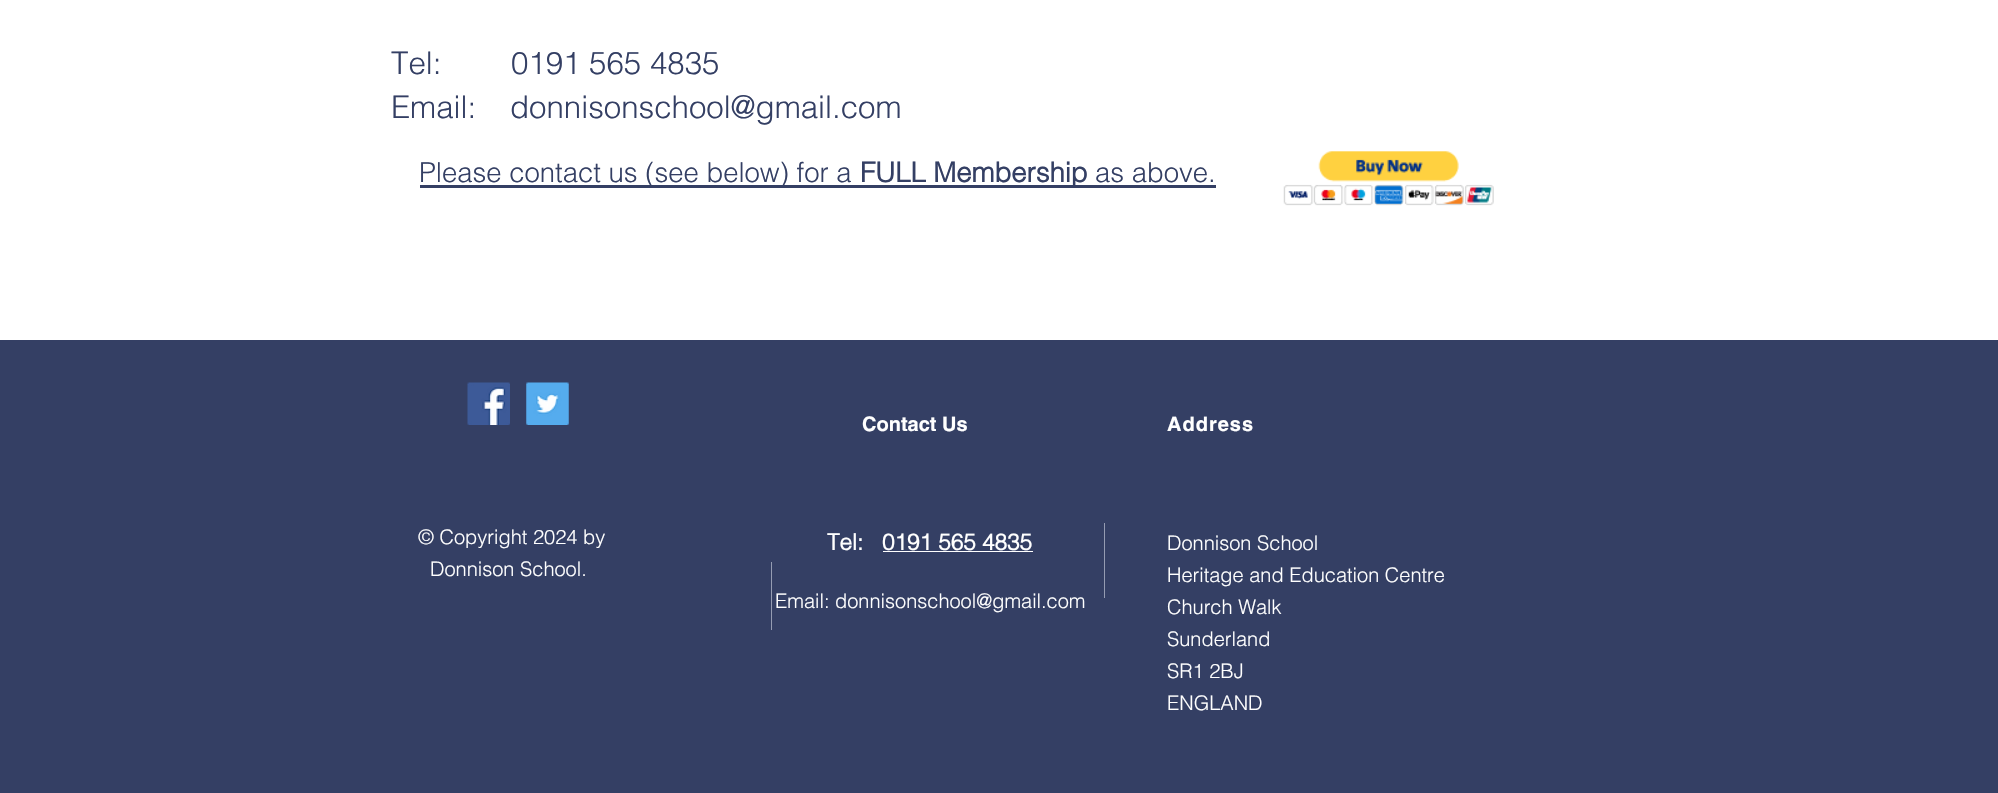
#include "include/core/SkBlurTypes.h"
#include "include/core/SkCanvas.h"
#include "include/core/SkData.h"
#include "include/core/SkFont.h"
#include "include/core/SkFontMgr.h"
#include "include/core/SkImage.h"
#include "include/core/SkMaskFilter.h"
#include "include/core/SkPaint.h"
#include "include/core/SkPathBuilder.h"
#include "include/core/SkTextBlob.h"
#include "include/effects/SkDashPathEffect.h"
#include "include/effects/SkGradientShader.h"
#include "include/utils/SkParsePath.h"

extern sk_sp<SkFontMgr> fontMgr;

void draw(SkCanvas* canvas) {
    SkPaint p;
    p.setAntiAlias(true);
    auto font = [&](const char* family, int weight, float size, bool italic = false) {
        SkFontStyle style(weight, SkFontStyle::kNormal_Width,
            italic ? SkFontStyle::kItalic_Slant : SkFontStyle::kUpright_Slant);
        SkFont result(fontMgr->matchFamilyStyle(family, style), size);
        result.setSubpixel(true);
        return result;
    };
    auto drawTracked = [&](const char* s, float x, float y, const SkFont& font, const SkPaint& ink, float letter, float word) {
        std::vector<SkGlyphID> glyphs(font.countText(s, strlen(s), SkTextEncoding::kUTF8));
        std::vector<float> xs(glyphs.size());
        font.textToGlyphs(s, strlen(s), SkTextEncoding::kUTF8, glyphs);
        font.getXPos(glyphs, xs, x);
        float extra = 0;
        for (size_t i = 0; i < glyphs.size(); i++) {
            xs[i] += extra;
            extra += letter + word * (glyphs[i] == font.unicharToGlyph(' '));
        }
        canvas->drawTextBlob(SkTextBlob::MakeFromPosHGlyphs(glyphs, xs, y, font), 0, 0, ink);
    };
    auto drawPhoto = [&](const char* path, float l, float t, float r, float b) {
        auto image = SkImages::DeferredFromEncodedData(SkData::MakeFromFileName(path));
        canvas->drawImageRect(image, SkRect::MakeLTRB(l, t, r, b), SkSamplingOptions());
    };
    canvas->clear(0xFFFFFFFF);
    auto font1 = font("helvetica", 300, 31.25f);
    p.setColor(0xFF343F64);
    {
        const struct { const char* s; float x, y; } items[] = {
            {"Tel:        0191 565 4835", 391, 74},
            {"Email:", 391, 118},
            {"donnisonschool@gmail.com", 510, 118},
        };
        for (auto [s, x, y] : items) {
            canvas->drawString(s, x, y, font1, p);
        }
    }
    canvas->drawRect(SkRect::MakeLTRB(420, 185, 1216, 188), p);
    auto font2 = font("helvetica", 300, 27.5f);
    canvas->drawString("Please contact us (see below) for a", 419, 182, font2, p);
    auto font3 = font("helvetica", 700, 27.5f);
    canvas->drawString("FULL Membership", 860, 182, font3, p);
    canvas->drawString("as above.", 1095, 182, font2, p);
    drawPhoto("media/1.png", 1283, 151, 1494, 206);
    canvas->drawRect(SkRect::MakeLTRB(0, 340, 1998, 793), p);
    drawPhoto("media/2.png", 467, 382, 510, 425);
    drawPhoto("media/3.png", 526, 382, 569, 425);
    auto font4 = font("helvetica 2", 700, 20);
    p.setColor(0xFFFFFFFF);
    canvas->drawString("Contact Us", 862, 431, font4, p);
    drawTracked("Address", 1167, 431, font4, p, 1, 0);
    auto font5 = font("helvetica", 300, 20);
    canvas->drawString("© Copyright 2024 by", 418, 544, font5, p);
    canvas->drawString("Donnison School.", 430, 576, font5, p);
    p.setColor(0xFF959CB2);
    canvas->drawRect(SkRect::MakeLTRB(771, 562, 772, 630), p);
    auto font6 = font("helvetica", 700, 22.5f);
    p.setColor(0xFFFFFFFF);
    canvas->drawString("Tel:", 827, 550, font6, p);
    canvas->drawString("0191 565 4835", 882, 550, font6, p);
    canvas->drawRect(SkRect::MakeLTRB(883, 551, 1033, 552), p);
    canvas->drawString("Email: donnisonschool@gmail.com", 775, 608, font5, p);
    p.setColor(0xFF959CB2);
    canvas->drawRect(SkRect::MakeLTRB(1104, 523, 1105, 598), p);
    p.setColor(0xFFFFFFFF);
    {
        const struct { const char* s; float x, y; } items[] = {
            {"Donnison School", 1167, 550},
            {"Heritage and Education Centre", 1167, 582},
            {"Church Walk", 1167, 614},
            {"Sunderland", 1167, 646},
            {"SR1 2BJ", 1167, 678},
            {"ENGLAND", 1167, 710},
        };
        for (auto [s, x, y] : items) {
            canvas->drawString(s, x, y, font5, p);
        }
    }
}
